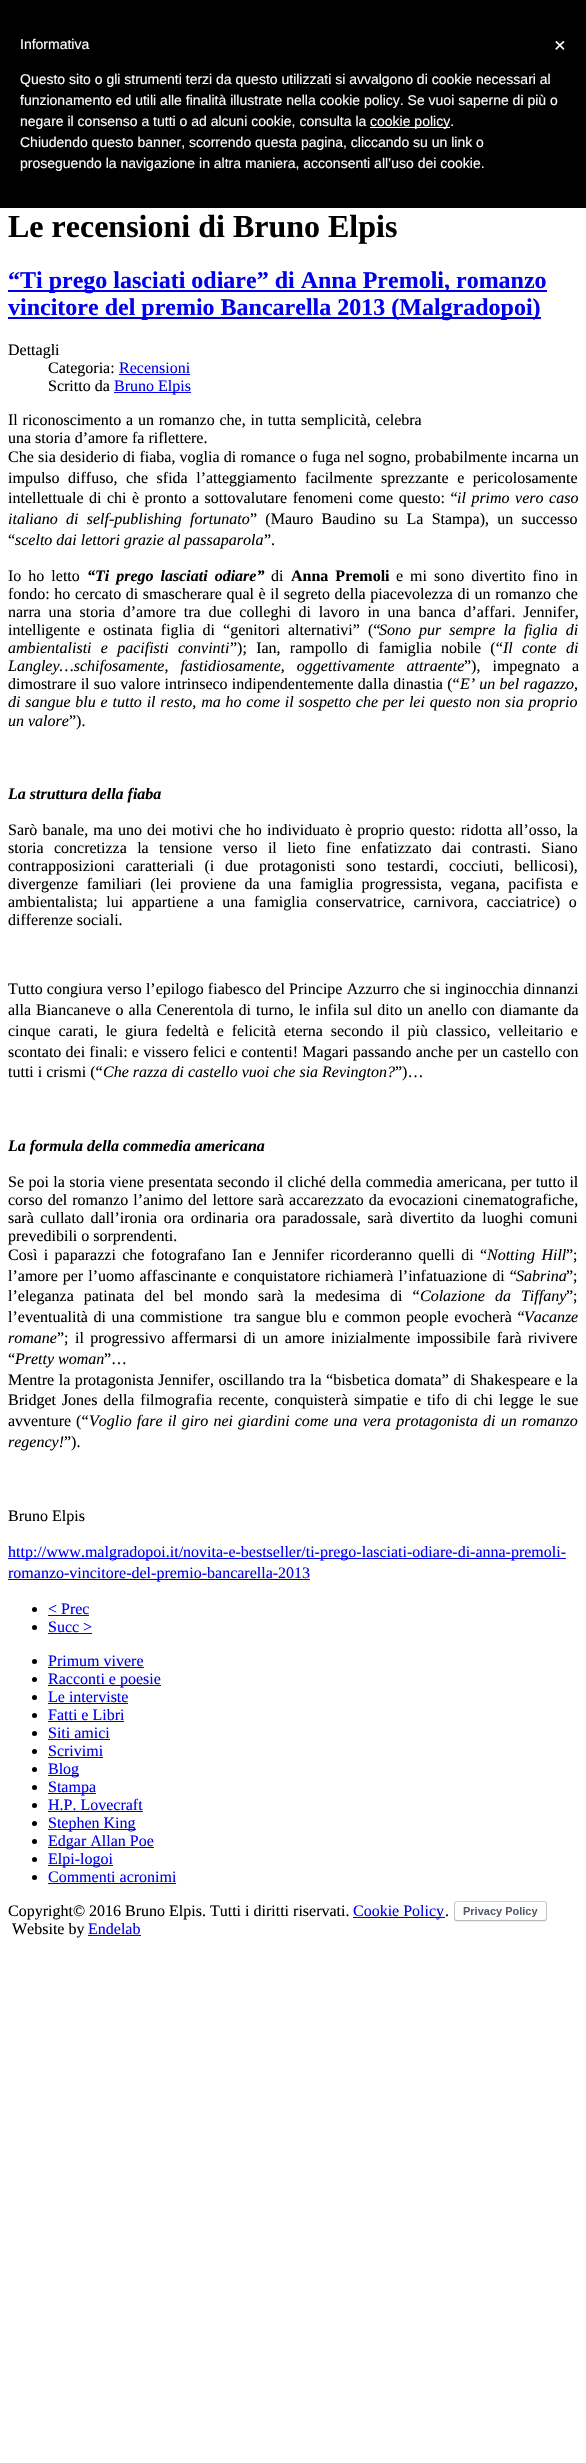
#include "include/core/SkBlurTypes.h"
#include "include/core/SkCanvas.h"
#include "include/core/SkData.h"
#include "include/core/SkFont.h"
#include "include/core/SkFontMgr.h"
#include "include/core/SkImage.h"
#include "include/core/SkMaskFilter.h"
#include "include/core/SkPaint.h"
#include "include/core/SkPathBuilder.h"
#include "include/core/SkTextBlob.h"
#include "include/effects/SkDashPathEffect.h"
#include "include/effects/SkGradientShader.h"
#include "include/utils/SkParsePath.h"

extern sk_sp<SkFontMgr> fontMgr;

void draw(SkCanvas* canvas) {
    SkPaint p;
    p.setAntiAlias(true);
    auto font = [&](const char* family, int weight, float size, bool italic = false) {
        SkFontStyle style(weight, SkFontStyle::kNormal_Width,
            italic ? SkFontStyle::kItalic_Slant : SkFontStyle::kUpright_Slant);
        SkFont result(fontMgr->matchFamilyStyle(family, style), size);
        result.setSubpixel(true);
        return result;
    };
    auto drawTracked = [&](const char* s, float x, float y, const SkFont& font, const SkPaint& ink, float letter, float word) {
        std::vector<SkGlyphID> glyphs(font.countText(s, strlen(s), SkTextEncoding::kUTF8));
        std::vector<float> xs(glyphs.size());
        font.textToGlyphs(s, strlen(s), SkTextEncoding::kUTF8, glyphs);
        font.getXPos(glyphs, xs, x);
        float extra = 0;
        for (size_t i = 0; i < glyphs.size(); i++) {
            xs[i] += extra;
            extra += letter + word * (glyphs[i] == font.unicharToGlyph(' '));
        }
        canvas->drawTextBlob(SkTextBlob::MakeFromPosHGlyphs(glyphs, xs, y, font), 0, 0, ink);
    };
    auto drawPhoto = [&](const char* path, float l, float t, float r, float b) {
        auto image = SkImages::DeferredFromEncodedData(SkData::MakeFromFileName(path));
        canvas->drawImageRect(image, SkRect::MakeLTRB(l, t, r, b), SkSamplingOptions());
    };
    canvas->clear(0xFFFFFFFF);
    p.setColor(0xFF000000);
    canvas->drawRect(SkRect::MakeLTRB(0, 0, 586, 208), p);
    auto font1 = font("Liberation Sans", 400, 14);
    p.setColor(0xFFFFFFFF);
    {
        const struct { const char* s; float x, y; } items[] = {
            {"Informativa", 20, 49},
            {"Questo sito o gli strumenti terzi da questo utilizzati si avvalgono di cookie necessari al", 20, 84},
            {"funzionamento ed utili alle finalità illustrate nella cookie policy. Se vuoi saperne di più o", 20, 105},
            {"negare il consenso a tutti o ad alcuni cookie, consulta la", 20, 126},
        };
        for (auto [s, x, y] : items) {
            canvas->drawString(s, x, y, font1, p);
        }
    }
    canvas->drawRect(SkRect::MakeLTRB(370, 127, 450, 128), p);
    {
        const struct { const char* s; float x, y; } items[] = {
            {"cookie policy.", 370, 126},
            {"Chiudendo questo banner, scorrendo questa pagina, cliccando su un link o", 20, 147},
            {"proseguendo la navigazione in altra maniera, acconsenti all’uso dei cookie.", 20, 168},
        };
        for (auto [s, x, y] : items) {
            canvas->drawString(s, x, y, font1, p);
        }
    }
    auto font2 = font("Liberation Sans", 400, 20);
    canvas->drawString("×", 554, 52, font2, p);
    auto font3 = font("Liberation Serif", 700, 32);
    p.setColor(0xFF000000);
    canvas->drawString("Le recensioni di Bruno Elpis", 8, 237, font3, p);
    p.setColor(0xFF0000EE);
    canvas->drawRect(SkRect::MakeLTRB(8, 290, 547, 292), p);
    auto font4 = font("Liberation Serif", 700, 24);
    canvas->drawString("“Ti prego lasciati odiare” di Anna Premoli, romanzo", 8, 288, font4, p);
    canvas->drawRect(SkRect::MakeLTRB(8, 317, 541, 319), p);
    canvas->drawString("vincitore del premio Bancarella 2013 (Malgradopoi)", 8, 315, font4, p);
    auto font5 = font("Liberation Serif", 400, 16);
    p.setColor(0xFF000000);
    canvas->drawString("Dettagli", 8, 355, font5, p);
    canvas->drawString("Categoria:", 48, 373, font5, p);
    p.setColor(0xFF0000EE);
    canvas->drawString("Recensioni", 119, 373, font5, p);
    canvas->drawRect(SkRect::MakeLTRB(119, 374, 190, 375), p);
    p.setColor(0xFF000000);
    canvas->drawString("Scritto da", 48, 391, font5, p);
    p.setColor(0xFF0000EE);
    canvas->drawRect(SkRect::MakeLTRB(114, 392, 191, 393), p);
    canvas->drawString("Bruno Elpis", 114, 391, font5, p);
    p.setColor(0xFF000000);
    drawTracked("Il riconoscimento a un romanzo che, in tutta semplicità, celebra", 8, 425, font5, p, 0, 0.8f);
    canvas->drawString("una storia d’amore fa riflettere.", 8, 443, font5, p);
    drawTracked("Che sia desiderio di fiaba, voglia di romance o fuga nel sogno, probabilmente incarna un", 8, 462, font5, p, 0, 0.2f);
    drawTracked("impulso diffuso, che sfida l’atteggiamento facilmente sprezzante e pericolosamente", 8, 483, font5, p, 0, 4.5f);
    drawTracked("intellettuale di chi è pronto a sottovalutare fenomeni come questo: “", 8, 503, font5, p, 0, 1.5f);
    auto font6 = font("Liberation Serif", 400, 16, true);
    drawTracked("il primo vero caso", 457, 503, font6, p, 0, 1.5f);
    drawTracked("italiano di self-publishing fortunato", 8, 524, font6, p, 0, 4.25f);
    drawTracked("” (Mauro Baudino su La Stampa), un successo", 250, 524, font5, p, 0, 4.25f);
    canvas->drawString("“", 8, 545, font5, p);
    canvas->drawString("scelto dai lettori grazie al passaparola", 15, 545, font6, p);
    canvas->drawString("”.", 264, 545, font5, p);
    drawTracked("Io ho letto", 8, 581, font5, p, 0, 3);
    auto font7 = font("Liberation Serif", 700, 16, true);
    drawTracked("“Ti prego lasciati odiare”", 87, 581, font7, p, 0, 3);
    canvas->drawString("di", 271, 581, font5, p);
    auto font8 = font("Liberation Serif", 700, 16);
    drawTracked("Anna Premoli", 291, 581, font8, p, 0, 3);
    drawTracked("e mi sono divertito fino in", 396, 581, font5, p, 0, 3);
    drawTracked("fondo: ho cercato di smascherare qual è il segreto della piacevolezza di un romanzo che", 8, 599, font5, p, 0, 0.6f);
    drawTracked("narra una storia d’amore tra due colleghi di lavoro in una banca d’affari. Jennifer,", 8, 617, font5, p, 0, 3.75f);
    drawTracked("intelligente e ostinata figlia di “genitori alternativi” (“", 8, 635, font5, p, 0, 4);
    drawTracked("Sono pur sempre la figlia di", 379, 635, font6, p, 0, 4);
    drawTracked("ambientalisti e pacifisti convinti", 8, 653, font6, p, 0, 5.25f);
    drawTracked("”); Ian, rampollo di famiglia nobile (“", 230, 653, font5, p, 0, 5.25f);
    drawTracked("Il conte di", 503, 653, font6, p, 0, 5.25f);
    drawTracked("Langley…schifosamente, fastidiosamente, oggettivamente attraente", 8, 671, font6, p, 0, 8);
    drawTracked("”), impegnato a", 464, 671, font5, p, 0, 8);
    drawTracked("dimostrare il suo valore intrinseco indipendentemente dalla dinastia (“", 8, 689, font5, p, 0, 0.25f);
    drawTracked("E’ un bel ragazzo,", 460, 689, font6, p, 0, 0.25f);
    drawTracked("di sangue blu e tutto il resto, ma ho come il sospetto che per lei questo non sia proprio", 8, 707, font6, p, 0, 0.8f);
    canvas->drawString("un valore", 8, 726, font6, p);
    canvas->drawString("”).", 69, 726, font5, p);
    canvas->drawString("La struttura della fiaba", 8, 799, font7, p);
    drawTracked("Sarò banale, ma uno dei motivi che ho individuato è proprio questo: ridotta all’osso, la", 8, 835, font5, p, 0, 1.1f);
    drawTracked("storia concretizza la tensione verso il lieto fine enfatizzato dai contrasti. Siano", 8, 853, font5, p, 0, 6.4f);
    drawTracked("contrapposizioni caratteriali (i due protagonisti sono testardi, cocciuti, bellicosi),", 8, 871, font5, p, 0, 6.75f);
    drawTracked("divergenze familiari (lei proviene da una famiglia progressista, vegana, pacifista e", 8, 889, font5, p, 0, 4.5f);
    drawTracked("ambientalista; lui appartiene a una famiglia conservatrice, carnivora, cacciatrice) o", 8, 907, font5, p, 0, 4.5f);
    canvas->drawString("differenze sociali.", 8, 925, font5, p);
    drawTracked("Tutto congiura verso l’epilogo fiabesco del Principe Azzurro che si inginocchia dinnanzi", 8, 994, font5, p, 0, 0.2f);
    drawTracked("alla Biancaneve o alla Cenerentola di turno, le infila sul dito un anello con diamante da", 8, 1015, font5, p, 0, 0.9f);
    drawTracked("cinque carati, le giura fedeltà e felicità eterna secondo il più classico, velleitario e", 8, 1036, font5, p, 0, 3.75f);
    drawTracked("scontato dei finali: e vissero felici e contenti! Magari passando anche per un castello con", 8, 1057, font5, p, 0, 0.25f);
    canvas->drawString("tutti i crismi (“", 8, 1077, font5, p);
    canvas->drawString("Che razza di castello vuoi che sia Revington?", 103, 1077, font6, p);
    canvas->drawString("”)…", 395, 1077, font5, p);
    canvas->drawString("La formula della commedia americana", 8, 1151, font7, p);
    drawTracked("Se poi la storia viene presentata secondo il cliché della commedia americana, per tutto il", 8, 1187, font5, p, 0, 0.4f);
    drawTracked("corso del romanzo l’animo del lettore sarà accarezzato da evocazioni cinematografiche,", 8, 1205, font5, p, 0, 1);
    drawTracked("sarà cullato dall’ironia ora ordinaria ora paradossale, sarà divertito da luoghi comuni", 8, 1223, font5, p, 0, 2.6f);
    canvas->drawString("prevedibili o sorprendenti.", 8, 1241, font5, p);
    drawTracked("Così i paparazzi che fotografano Ian e Jennifer ricorderanno quelli di “", 8, 1260, font5, p, 0, 2.4f);
    drawTracked("Notting Hill", 487, 1260, font6, p, 0, 2.4f);
    canvas->drawString("”;", 566, 1260, font5, p);
    drawTracked("l’amore per l’uomo affascinante e conquistatore richiamerà l’infatuazione di “", 8, 1281, font5, p, 0, 1);
    canvas->drawString("Sabrina", 516, 1281, font6, p);
    canvas->drawString("”;", 566, 1281, font5, p);
    drawTracked("l’eleganza patinata del bel mondo sarà la medesima di “", 8, 1301, font5, p, 0, 6);
    drawTracked("Colazione da Tiffany", 420, 1301, font6, p, 0, 6);
    canvas->drawString("”;", 566, 1301, font5, p);
    drawTracked("l’eventualità di una commistione  tra sangue blu e common people evocherà “", 8, 1322, font5, p, 0, 1.5f);
    canvas->drawString("Vacanze", 524, 1322, font6, p);
    canvas->drawString("romane", 8, 1343, font6, p);
    drawTracked("”; il progressivo affermarsi di un amore inizialmente impossibile farà rivivere", 57, 1343, font5, p, 0, 2.4f);
    canvas->drawString("“", 8, 1364, font5, p);
    canvas->drawString("Pretty woman", 15, 1364, font6, p);
    canvas->drawString("”…", 104, 1364, font5, p);
    drawTracked("Mentre la protagonista Jennifer, oscillando tra la “bisbetica domata” di Shakespeare e la", 8, 1385, font5, p, 0, 0.5f);
    drawTracked("Bridget Jones della filmografia recente, conquisterà simpatie e tifo di chi legge le sue", 8, 1405, font5, p, 0, 1.9f);
    drawTracked("avventure (“", 8, 1426, font5, p, 0, 1);
    drawTracked("Voglio fare il giro nei giardini come una vera protagonista di un romanzo", 89, 1426, font6, p, 0, 1.1f);
    canvas->drawString("regency!", 8, 1447, font6, p);
    canvas->drawString("”).", 64, 1447, font5, p);
    canvas->drawString("Bruno Elpis", 8, 1521, font5, p);
    p.setColor(0xFF0000EE);
    canvas->drawRect(SkRect::MakeLTRB(8, 1558, 566, 1559), p);
    canvas->drawString("http://www.malgradopoi.it/novita-e-bestseller/ti-prego-lasciati-odiare-di-anna-premoli-", 8, 1557, font5, p);
    canvas->drawRect(SkRect::MakeLTRB(8, 1579, 310, 1580), p);
    canvas->drawString("romanzo-vincitore-del-premio-bancarella-2013", 8, 1578, font5, p);
    p.setColor(0xFF000000);
    canvas->drawCircle(34.5f, 1609.5f, 2.5f, p);
    p.setColor(0xFF0000EE);
    canvas->drawString("< Prec", 48, 1614, font5, p);
    canvas->drawRect(SkRect::MakeLTRB(48, 1615, 89, 1616), p);
    p.setColor(0xFF000000);
    canvas->drawCircle(34.5f, 1627.5f, 2.5f, p);
    p.setColor(0xFF0000EE);
    canvas->drawString("Succ >", 48, 1632, font5, p);
    canvas->drawRect(SkRect::MakeLTRB(48, 1633, 92, 1634), p);
    p.setColor(0xFF000000);
    canvas->drawCircle(34.5f, 1661.5f, 2.5f, p);
    p.setColor(0xFF0000EE);
    canvas->drawString("Primum vivere", 48, 1666, font5, p);
    canvas->drawRect(SkRect::MakeLTRB(48, 1667, 144, 1668), p);
    p.setColor(0xFF000000);
    canvas->drawCircle(34.5f, 1679.5f, 2.5f, p);
    p.setColor(0xFF0000EE);
    canvas->drawRect(SkRect::MakeLTRB(48, 1685, 161, 1686), p);
    canvas->drawString("Racconti e poesie", 48, 1684, font5, p);
    p.setColor(0xFF000000);
    canvas->drawCircle(34.5f, 1697.5f, 2.5f, p);
    p.setColor(0xFF0000EE);
    canvas->drawString("Le interviste", 48, 1702, font5, p);
    canvas->drawRect(SkRect::MakeLTRB(48, 1703, 128, 1704), p);
    p.setColor(0xFF000000);
    canvas->drawCircle(34.5f, 1715.5f, 2.5f, p);
    p.setColor(0xFF0000EE);
    canvas->drawString("Fatti e Libri", 48, 1720, font5, p);
    canvas->drawRect(SkRect::MakeLTRB(48, 1721, 124, 1722), p);
    p.setColor(0xFF000000);
    canvas->drawCircle(34.5f, 1733.5f, 2.5f, p);
    p.setColor(0xFF0000EE);
    canvas->drawString("Siti amici", 48, 1738, font5, p);
    canvas->drawRect(SkRect::MakeLTRB(48, 1739, 110, 1740), p);
    p.setColor(0xFF000000);
    canvas->drawCircle(34.5f, 1751.5f, 2.5f, p);
    p.setColor(0xFF0000EE);
    canvas->drawString("Scrivimi", 48, 1756, font5, p);
    canvas->drawRect(SkRect::MakeLTRB(48, 1757, 103, 1758), p);
    p.setColor(0xFF000000);
    canvas->drawCircle(34.5f, 1769.5f, 2.5f, p);
    p.setColor(0xFF0000EE);
    canvas->drawRect(SkRect::MakeLTRB(48, 1775, 79, 1776), p);
    canvas->drawString("Blog", 48, 1774, font5, p);
    p.setColor(0xFF000000);
    canvas->drawCircle(34.5f, 1787.5f, 2.5f, p);
    p.setColor(0xFF0000EE);
    canvas->drawRect(SkRect::MakeLTRB(48, 1793, 96, 1794), p);
    canvas->drawString("Stampa", 48, 1792, font5, p);
    p.setColor(0xFF000000);
    canvas->drawCircle(34.5f, 1805.5f, 2.5f, p);
    p.setColor(0xFF0000EE);
    canvas->drawString("H.P. Lovecraft", 48, 1810, font5, p);
    canvas->drawRect(SkRect::MakeLTRB(48, 1811, 143, 1812), p);
    p.setColor(0xFF000000);
    canvas->drawCircle(34.5f, 1823.5f, 2.5f, p);
    p.setColor(0xFF0000EE);
    canvas->drawRect(SkRect::MakeLTRB(48, 1829, 136, 1830), p);
    canvas->drawString("Stephen King", 48, 1828, font5, p);
    p.setColor(0xFF000000);
    canvas->drawCircle(34.5f, 1841.5f, 2.5f, p);
    p.setColor(0xFF0000EE);
    canvas->drawRect(SkRect::MakeLTRB(48, 1847, 154, 1848), p);
    canvas->drawString("Edgar Allan Poe", 48, 1846, font5, p);
    p.setColor(0xFF000000);
    canvas->drawCircle(34.5f, 1859.5f, 2.5f, p);
    p.setColor(0xFF0000EE);
    canvas->drawRect(SkRect::MakeLTRB(48, 1865, 113, 1866), p);
    canvas->drawString("Elpi-logoi", 48, 1864, font5, p);
    p.setColor(0xFF000000);
    canvas->drawCircle(34.5f, 1877.5f, 2.5f, p);
    p.setColor(0xFF0000EE);
    canvas->drawString("Commenti acronimi", 48, 1882, font5, p);
    canvas->drawRect(SkRect::MakeLTRB(48, 1883, 176, 1884), p);
    p.setColor(0xFF000000);
    canvas->drawString("Copyright© 2016 Bruno Elpis. Tutti i diritti riservati.", 8, 1916, font5, p);
    p.setColor(0xFF0000EE);
    canvas->drawRect(SkRect::MakeLTRB(353, 1917, 445, 1918), p);
    canvas->drawString("Cookie Policy", 353, 1916, font5, p);
    p.setColor(0xFF000000);
    canvas->drawString(".", 445, 1916, font5, p);
    drawPhoto("media/1.png", 454, 1901, 547, 1922);
    canvas->drawString("Website by", 12, 1934, font5, p);
    p.setColor(0xFF0000EE);
    canvas->drawString("Endelab", 88, 1934, font5, p);
    canvas->drawRect(SkRect::MakeLTRB(88, 1935, 141, 1936), p);
}
